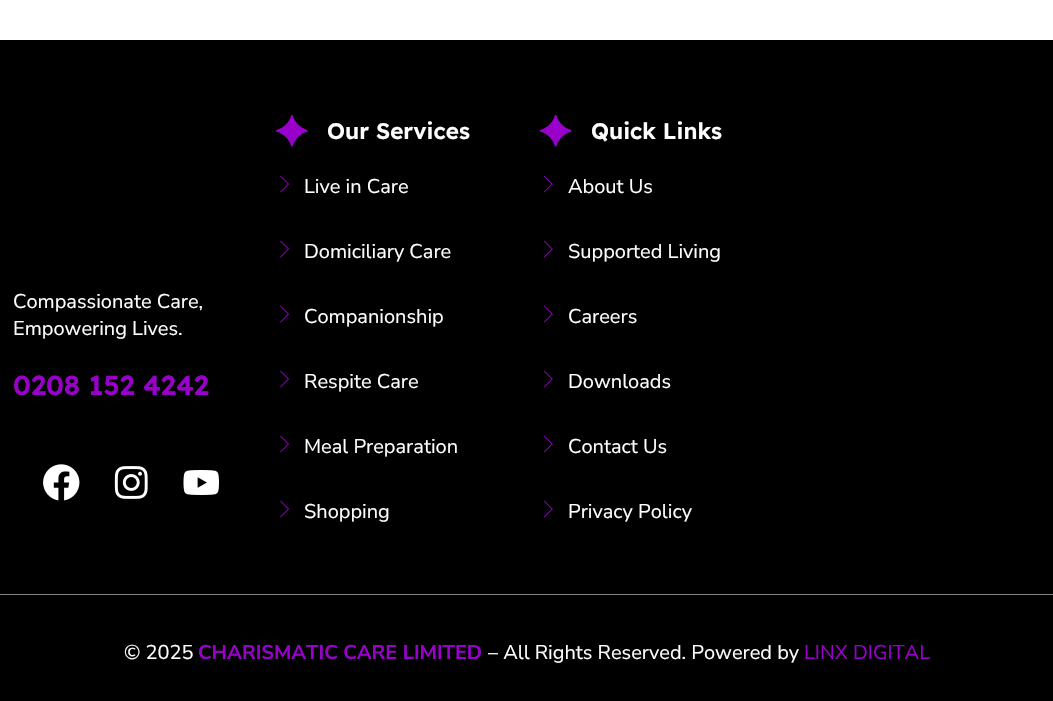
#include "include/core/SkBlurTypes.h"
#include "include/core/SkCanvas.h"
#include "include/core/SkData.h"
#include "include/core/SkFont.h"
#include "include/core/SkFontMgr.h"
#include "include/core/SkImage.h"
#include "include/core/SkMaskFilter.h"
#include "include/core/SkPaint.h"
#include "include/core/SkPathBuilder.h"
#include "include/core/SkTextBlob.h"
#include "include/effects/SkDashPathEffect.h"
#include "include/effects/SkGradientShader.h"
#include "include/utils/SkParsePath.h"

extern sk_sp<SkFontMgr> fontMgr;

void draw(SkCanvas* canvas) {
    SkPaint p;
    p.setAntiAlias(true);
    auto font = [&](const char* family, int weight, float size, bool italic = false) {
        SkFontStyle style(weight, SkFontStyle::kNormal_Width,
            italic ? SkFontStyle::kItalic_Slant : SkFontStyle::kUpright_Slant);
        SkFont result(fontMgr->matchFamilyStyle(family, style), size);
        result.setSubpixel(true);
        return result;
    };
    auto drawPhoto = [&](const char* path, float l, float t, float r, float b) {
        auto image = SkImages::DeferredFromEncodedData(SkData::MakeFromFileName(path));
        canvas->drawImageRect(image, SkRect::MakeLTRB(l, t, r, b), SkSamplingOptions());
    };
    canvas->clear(0xFFFFFFFF);
    p.setColor(0xFF000000);
    canvas->drawRect(SkRect::MakeLTRB(0, 40, 1053, 701), p);
    auto font1 = font("Nunito Sans", 400, 20);
    p.setColor(0xFFFFFFFF);
    canvas->drawString("Compassionate Care,", 13, 308, font1, p);
    canvas->drawString("Empowering Lives.", 13, 335, font1, p);
    auto font2 = font("Readex Pro", 600, 27.5f);
    p.setColor(0xFF9900CC);
    canvas->drawString("0208 152 4242", 13, 395, font2, p);
    drawPhoto("media/1.png", 43, 464, 80, 501);
    drawPhoto("media/2.png", 114, 466, 148, 499);
    drawPhoto("media/3.png", 183, 470, 219, 495);
    drawPhoto("media/4.png", 276, 115, 308, 147);
    auto font3 = font("Readex Pro", 600, 22.5f);
    p.setColor(0xFFFFFFFF);
    canvas->drawString("Our Services", 327, 139, font3, p);
    drawPhoto("media/5.png", 280, 175, 289, 193);
    canvas->drawString("Live in Care", 304, 193, font1, p);
    drawPhoto("media/5.png", 280, 240, 289, 258);
    canvas->drawString("Domiciliary Care", 304, 258, font1, p);
    drawPhoto("media/5.png", 280, 305, 289, 323);
    canvas->drawString("Companionship", 304, 323, font1, p);
    drawPhoto("media/5.png", 280, 370, 289, 388);
    canvas->drawString("Respite Care", 304, 388, font1, p);
    drawPhoto("media/5.png", 280, 435, 289, 453);
    canvas->drawString("Meal Preparation", 304, 453, font1, p);
    drawPhoto("media/5.png", 280, 500, 289, 518);
    canvas->drawString("Shopping", 304, 518, font1, p);
    drawPhoto("media/6.png", 540, 115, 572, 147);
    canvas->drawString("Quick Links", 591, 139, font3, p);
    drawPhoto("media/7.png", 544, 175, 553, 193);
    canvas->drawString("About Us", 568, 193, font1, p);
    drawPhoto("media/7.png", 544, 240, 553, 258);
    canvas->drawString("Supported Living", 568, 258, font1, p);
    drawPhoto("media/7.png", 544, 305, 553, 323);
    canvas->drawString("Careers", 568, 323, font1, p);
    drawPhoto("media/7.png", 544, 370, 553, 388);
    canvas->drawString("Downloads", 568, 388, font1, p);
    drawPhoto("media/7.png", 544, 435, 553, 453);
    canvas->drawString("Contact Us", 568, 453, font1, p);
    drawPhoto("media/7.png", 544, 500, 553, 518);
    canvas->drawString("Privacy Policy", 568, 518, font1, p);
    p.setColor(0xFF858585);
    canvas->drawRect(SkRect::MakeLTRB(0, 594, 1053, 595), p);
    p.setColor(0xFFFFFFFF);
    canvas->drawString("© 2025", 124, 659, font1, p);
    auto font4 = font("Nunito Sans", 700, 20);
    p.setColor(0xFF9900CC);
    canvas->drawString("CHARISMATIC CARE LIMITED", 198, 659, font4, p);
    p.setColor(0xFFFFFFFF);
    canvas->drawString("– All Rights Reserved. Powered by", 488, 659, font1, p);
    p.setColor(0xFF9900CC);
    canvas->drawString("LINX DIGITAL", 804, 659, font1, p);
}
